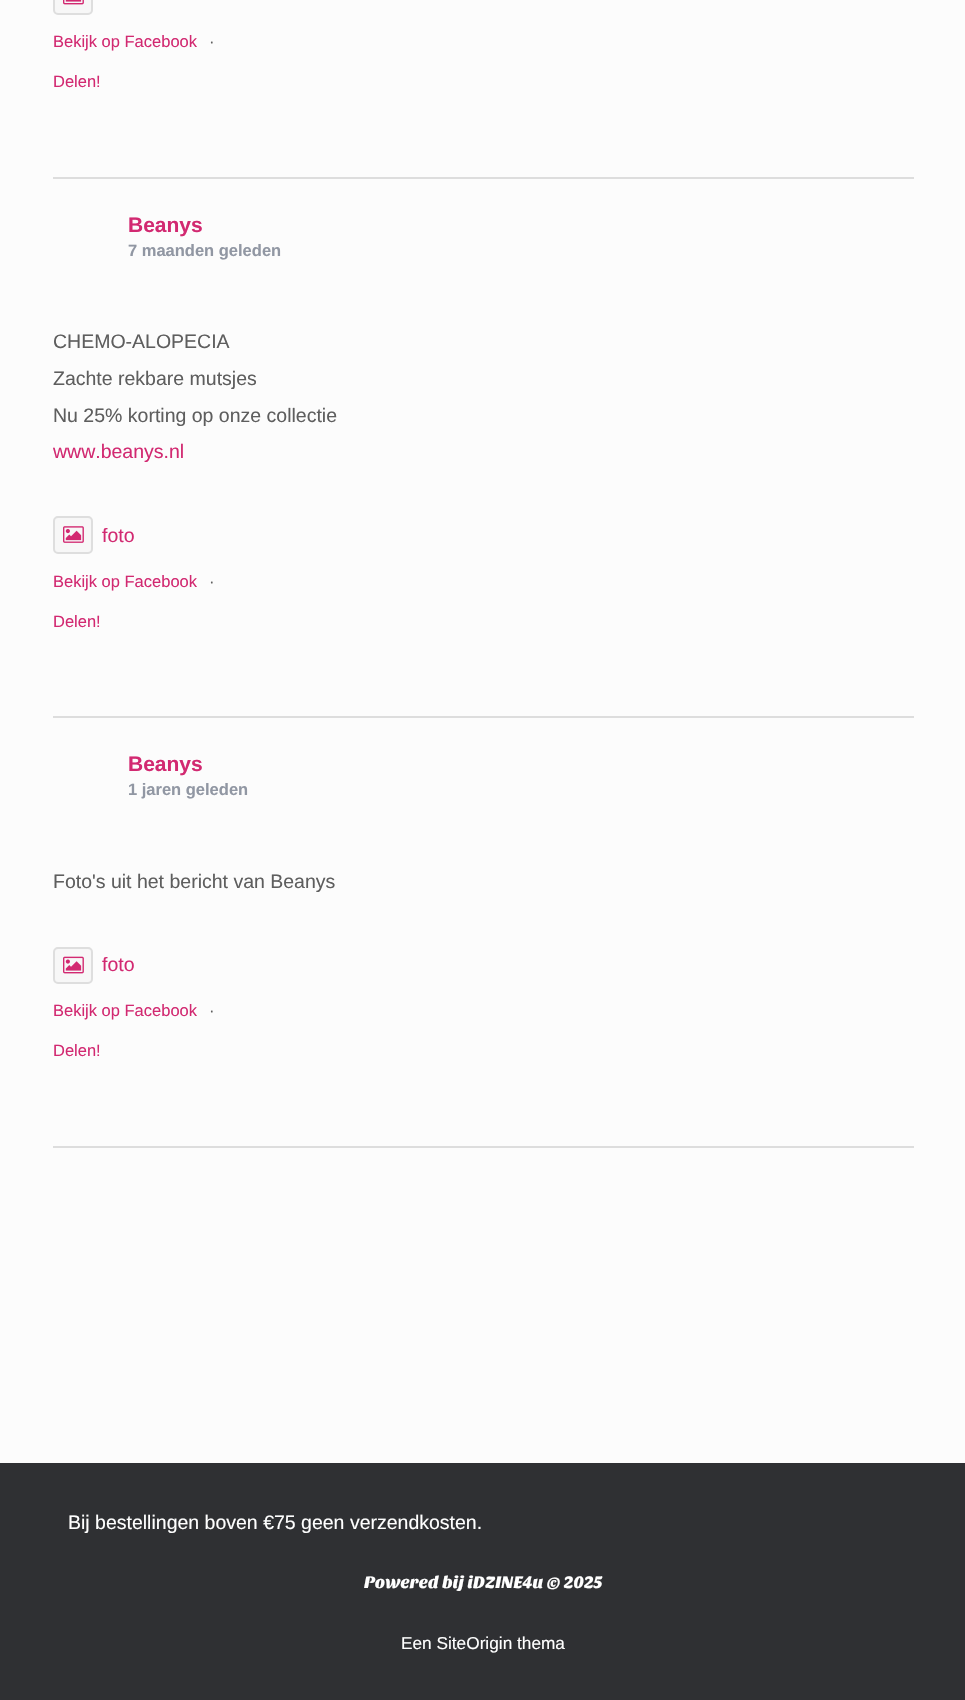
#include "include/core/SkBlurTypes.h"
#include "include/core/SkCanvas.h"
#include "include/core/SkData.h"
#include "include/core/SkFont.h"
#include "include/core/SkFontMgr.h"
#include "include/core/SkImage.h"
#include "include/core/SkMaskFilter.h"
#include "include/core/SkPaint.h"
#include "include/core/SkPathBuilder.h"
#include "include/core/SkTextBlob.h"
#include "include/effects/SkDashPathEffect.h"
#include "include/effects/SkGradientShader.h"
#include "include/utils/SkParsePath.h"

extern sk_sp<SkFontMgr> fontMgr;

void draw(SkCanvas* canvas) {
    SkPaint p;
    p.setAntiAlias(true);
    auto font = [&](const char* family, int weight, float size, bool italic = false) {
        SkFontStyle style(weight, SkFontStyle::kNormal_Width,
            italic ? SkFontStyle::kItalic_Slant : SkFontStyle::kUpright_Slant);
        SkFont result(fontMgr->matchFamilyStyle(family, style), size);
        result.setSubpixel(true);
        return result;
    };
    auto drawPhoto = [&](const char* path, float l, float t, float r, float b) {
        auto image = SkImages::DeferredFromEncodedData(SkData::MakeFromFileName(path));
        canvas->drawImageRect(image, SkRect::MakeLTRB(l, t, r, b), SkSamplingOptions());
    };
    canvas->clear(0xFF2F3033);
    p.setColor(0xFFFCFCFC);
    canvas->drawRect(SkRect::MakeLTRB(0, 0, 965, 1463), p);
    p.setColor(0xFFDDDDDD);
    canvas->drawRect(SkRect::MakeLTRB(53, 177, 914, 179), p);
    p.setColor(0xFFF7F7F7);
    canvas->drawRoundRect(SkRect::MakeLTRB(54, -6, 92, 14), 4, 4, p);
    p.setStyle(SkPaint::kStroke_Style);
    p.setStrokeWidth(2);
    p.setColor(0xFFDEDEDE);
    canvas->drawRoundRect(SkRect::MakeLTRB(54, -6, 92, 14), 4, 4, p);
    drawPhoto("media/1.png", 63, 0, 84, 5);
    auto font1 = font("Liberation Sans", 400, 16.5f);
    p.setStyle(SkPaint::kFill_Style);
    p.setColor(0xFFD22971);
    canvas->drawString("Bekijk op Facebook", 53, 47, font1, p);
    p.setColor(0xFF5E5E5E);
    canvas->drawString("·", 209, 47, font1, p);
    p.setColor(0xFFD22971);
    canvas->drawString("Delen!", 53, 87, font1, p);
    p.setColor(0xFFDDDDDD);
    canvas->drawRect(SkRect::MakeLTRB(53, 716, 914, 718), p);
    auto font2 = font("Liberation Sans", 700, 21);
    p.setColor(0xFFD22971);
    canvas->drawString("Beanys", 128, 232, font2, p);
    auto font3 = font("Liberation Sans", 700, 16.5f);
    p.setColor(0xFF9197A3);
    canvas->drawString("7 maanden geleden", 128, 256, font3, p);
    auto font4 = font("Liberation Sans", 400, 19.5f);
    p.setColor(0xFF5E5E5E);
    {
        const struct { const char* s; float x, y; } items[] = {
            {"CHEMO-ALOPECIA", 53, 348},
            {"Zachte rekbare mutsjes", 53, 385},
            {"Nu 25% korting op onze collectie", 53, 422},
        };
        for (auto [s, x, y] : items) {
            canvas->drawString(s, x, y, font4, p);
        }
    }
    p.setColor(0xFFD22971);
    canvas->drawString("www.beanys.nl", 53, 458, font4, p);
    p.setColor(0xFFF7F7F7);
    canvas->drawRoundRect(SkRect::MakeLTRB(54, 517, 92, 553), 4, 4, p);
    p.setStyle(SkPaint::kStroke_Style);
    p.setColor(0xFFDEDEDE);
    canvas->drawRoundRect(SkRect::MakeLTRB(54, 517, 92, 553), 4, 4, p);
    drawPhoto("media/2.png", 63, 526, 84, 543);
    p.setStyle(SkPaint::kFill_Style);
    p.setColor(0xFFD22971);
    canvas->drawString("foto", 102, 542, font4, p);
    canvas->drawString("Bekijk op Facebook", 53, 587, font1, p);
    p.setColor(0xFF5E5E5E);
    canvas->drawString("·", 209, 587, font1, p);
    p.setColor(0xFFD22971);
    canvas->drawString("Delen!", 53, 627, font1, p);
    p.setColor(0xFFDDDDDD);
    canvas->drawRect(SkRect::MakeLTRB(53, 1146, 914, 1148), p);
    p.setColor(0xFFD22971);
    canvas->drawString("Beanys", 128, 771, font2, p);
    p.setColor(0xFF9197A3);
    canvas->drawString("1 jaren geleden", 128, 795, font3, p);
    p.setColor(0xFF5E5E5E);
    canvas->drawString("Foto's uit het bericht van Beanys", 53, 888, font4, p);
    p.setColor(0xFFF7F7F7);
    canvas->drawRoundRect(SkRect::MakeLTRB(54, 948, 92, 983), 4, 4, p);
    p.setStyle(SkPaint::kStroke_Style);
    p.setColor(0xFFDEDEDE);
    canvas->drawRoundRect(SkRect::MakeLTRB(54, 948, 92, 983), 4, 4, p);
    drawPhoto("media/3.png", 63, 956, 84, 974);
    p.setStyle(SkPaint::kFill_Style);
    p.setColor(0xFFD22971);
    canvas->drawString("foto", 102, 971, font4, p);
    canvas->drawString("Bekijk op Facebook", 53, 1016, font1, p);
    p.setColor(0xFF5E5E5E);
    canvas->drawString("·", 209, 1016, font1, p);
    p.setColor(0xFFD22971);
    canvas->drawString("Delen!", 53, 1056, font1, p);
    p.setColor(0xFFFFFFFF);
    canvas->drawString("Bij bestellingen boven €75 geen verzendkosten.", 68, 1529, font4, p);
    auto font5 = font("Sansita One", 400, 17.25f);
    canvas->drawString("Powered bij iDZINE4u © 2025", 364, 1588, font5, p);
    auto font6 = font("Liberation Sans", 400, 17.25f);
    canvas->drawString("Een SiteOrigin thema", 401, 1649, font6, p);
}
